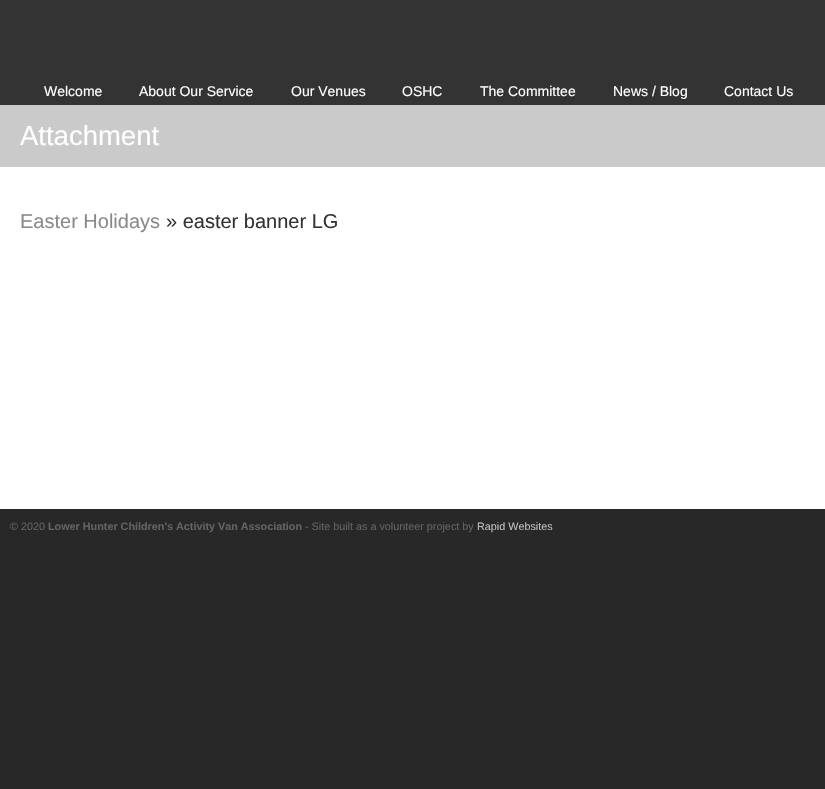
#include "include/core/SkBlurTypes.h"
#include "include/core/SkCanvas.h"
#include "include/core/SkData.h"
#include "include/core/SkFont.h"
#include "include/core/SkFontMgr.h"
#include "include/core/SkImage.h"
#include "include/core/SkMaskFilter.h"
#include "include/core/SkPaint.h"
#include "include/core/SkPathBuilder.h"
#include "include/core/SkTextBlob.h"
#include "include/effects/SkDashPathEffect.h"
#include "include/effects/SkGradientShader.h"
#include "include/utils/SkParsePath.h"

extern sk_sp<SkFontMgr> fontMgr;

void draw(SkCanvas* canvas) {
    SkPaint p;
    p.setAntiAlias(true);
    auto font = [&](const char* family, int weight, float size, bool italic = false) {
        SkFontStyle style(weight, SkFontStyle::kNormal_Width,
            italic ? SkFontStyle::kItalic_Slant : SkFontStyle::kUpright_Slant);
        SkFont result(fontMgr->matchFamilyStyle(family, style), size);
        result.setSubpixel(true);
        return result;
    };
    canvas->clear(0xFF282828);
    p.setColor(0xFF333333);
    canvas->drawRect(SkRect::MakeLTRB(0, 0, 825, 105), p);
    auto font1 = font("Liberation Sans", 400, 14);
    p.setColor(0xFFFFFFFF);
    {
        const struct { const char* s; float x, y; } items[] = {
            {"Welcome", 44, 96},
            {"About Our Service", 139, 96},
            {"Our Venues", 291, 96},
            {"OSHC", 402, 96},
            {"The Committee", 480, 96},
            {"News / Blog", 613, 96},
            {"Contact Us", 724, 96},
        };
        for (auto [s, x, y] : items) {
            canvas->drawString(s, x, y, font1, p);
        }
    }
    p.setColor(0xFFCACACA);
    canvas->drawRect(SkRect::MakeLTRB(0, 105, 825, 167), p);
    auto font2 = font("Liberation Sans", 400, 27.5f);
    p.setColor(0xFFFFFFFF);
    canvas->drawString("Attachment", 20, 145, font2, p);
    canvas->drawRect(SkRect::MakeLTRB(0, 167, 825, 509), p);
    auto font3 = font("Liberation Sans", 400, 20);
    p.setColor(0xFF8A8A8A);
    canvas->drawString("Easter Holidays", 20, 228, font3, p);
    p.setColor(0xFF333333);
    canvas->drawString("» easter banner LG", 166, 228, font3, p);
    auto font4 = font("Liberation Sans", 400, 10.8f);
    p.setColor(0xFF636363);
    canvas->drawString("© 2020", 10, 530, font4, p);
    auto font5 = font("Liberation Sans", 700, 10.8f);
    canvas->drawString("Lower Hunter Children's Activity Van Association", 48, 530, font5, p);
    canvas->drawString("- Site built as a volunteer project by", 305, 530, font4, p);
    p.setColor(0xFFBFBFBF);
    canvas->drawString("Rapid Websites", 477, 530, font4, p);
}
